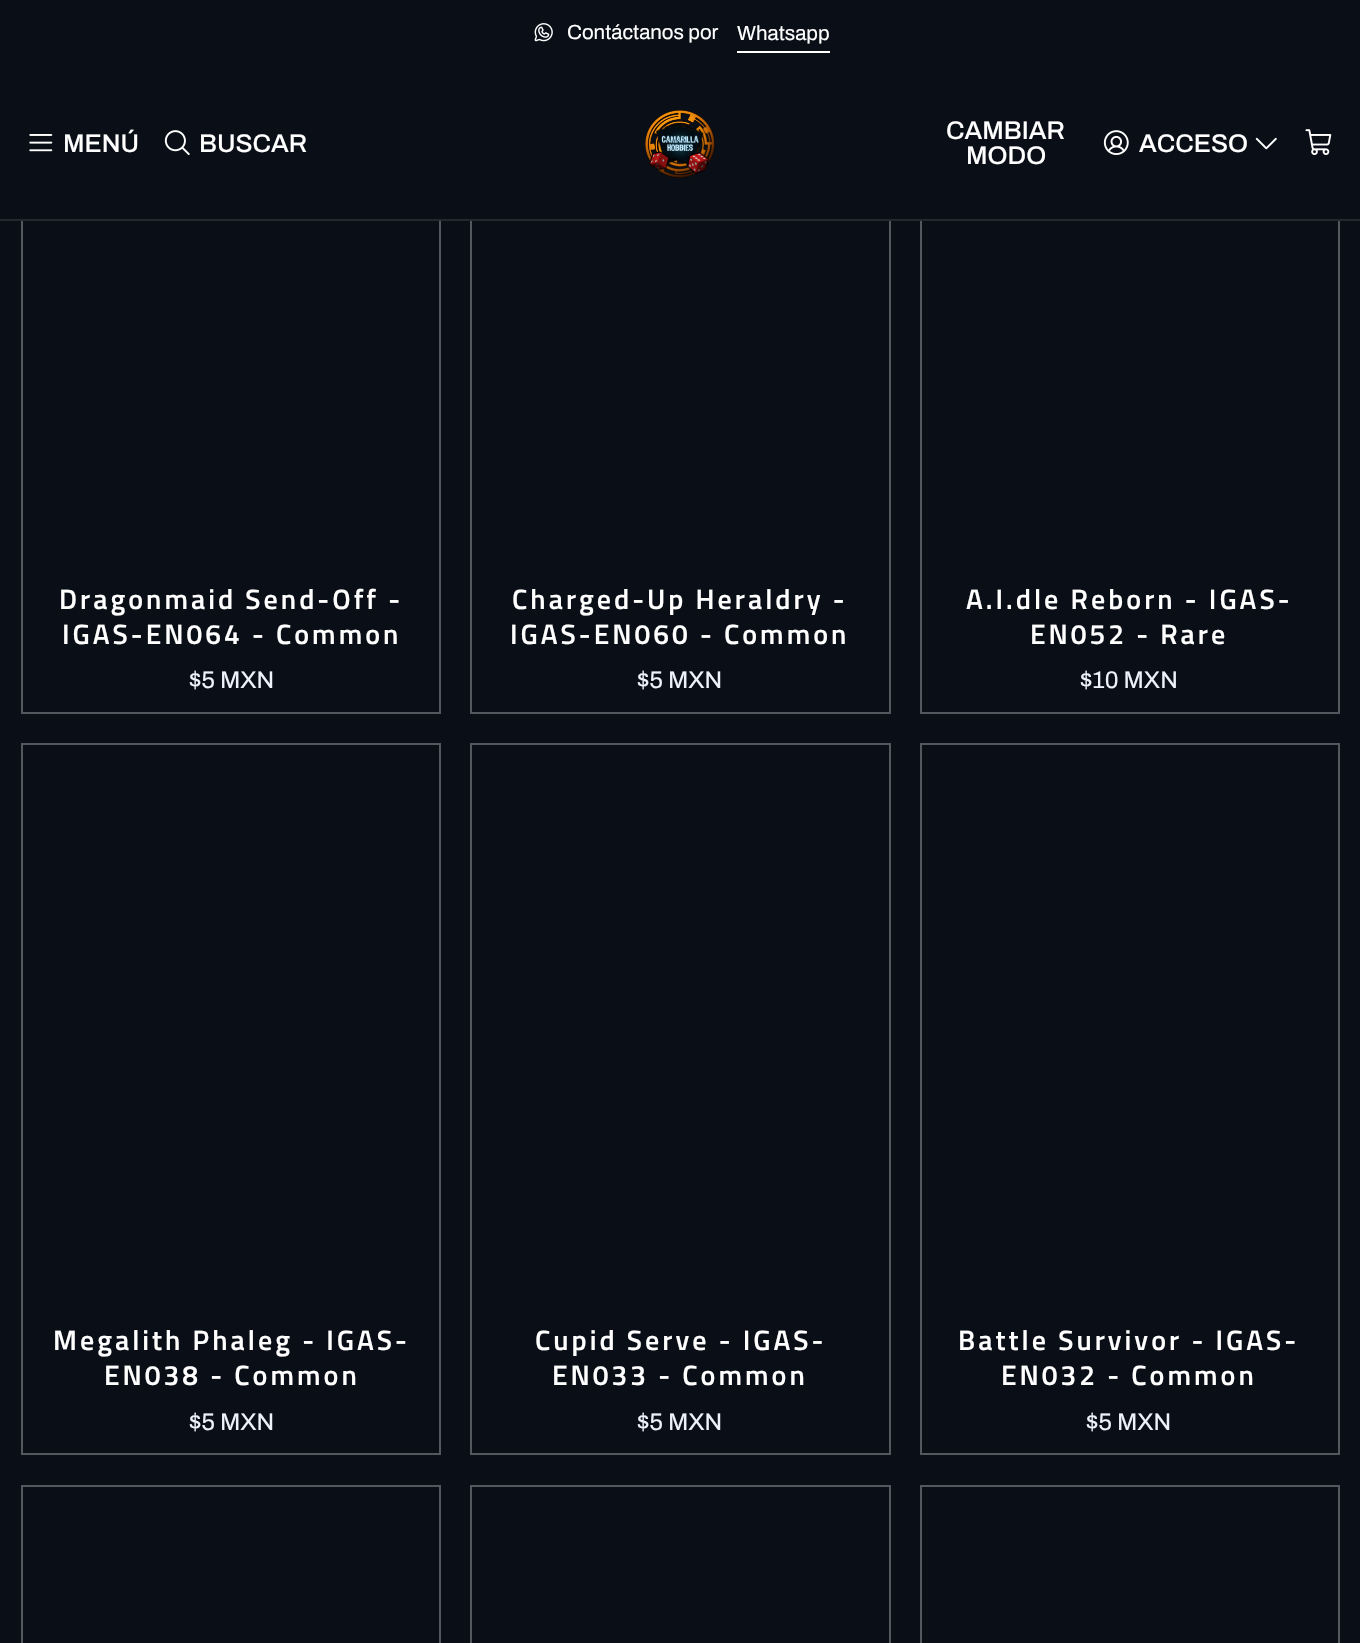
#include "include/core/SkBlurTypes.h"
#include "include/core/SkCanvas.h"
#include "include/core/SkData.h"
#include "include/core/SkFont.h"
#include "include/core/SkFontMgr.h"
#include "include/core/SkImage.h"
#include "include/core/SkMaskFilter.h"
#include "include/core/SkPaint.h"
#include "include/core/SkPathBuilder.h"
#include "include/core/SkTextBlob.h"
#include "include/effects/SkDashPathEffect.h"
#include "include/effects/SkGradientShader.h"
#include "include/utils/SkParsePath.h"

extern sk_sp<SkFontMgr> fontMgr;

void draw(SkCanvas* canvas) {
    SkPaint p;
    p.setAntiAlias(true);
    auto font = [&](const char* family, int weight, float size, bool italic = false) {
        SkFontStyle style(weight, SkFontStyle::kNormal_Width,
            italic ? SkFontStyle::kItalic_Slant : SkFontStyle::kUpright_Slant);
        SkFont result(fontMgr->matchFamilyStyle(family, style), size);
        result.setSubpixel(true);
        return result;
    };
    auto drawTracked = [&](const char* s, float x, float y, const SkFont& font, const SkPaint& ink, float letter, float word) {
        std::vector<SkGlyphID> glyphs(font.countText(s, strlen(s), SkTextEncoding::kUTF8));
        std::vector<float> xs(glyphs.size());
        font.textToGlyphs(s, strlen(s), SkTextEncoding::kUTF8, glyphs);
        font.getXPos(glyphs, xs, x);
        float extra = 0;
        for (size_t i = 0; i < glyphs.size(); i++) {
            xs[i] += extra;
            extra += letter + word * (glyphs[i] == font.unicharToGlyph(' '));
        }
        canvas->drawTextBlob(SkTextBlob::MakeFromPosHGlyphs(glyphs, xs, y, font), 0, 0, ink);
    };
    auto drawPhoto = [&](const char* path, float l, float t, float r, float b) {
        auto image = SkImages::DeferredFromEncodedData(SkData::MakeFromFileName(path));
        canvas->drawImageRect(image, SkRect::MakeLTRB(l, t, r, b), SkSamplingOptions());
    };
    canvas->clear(0xFF0A0F17);
    p.setStyle(SkPaint::kStroke_Style);
    p.setStrokeWidth(2);
    p.setColor(0xFF54575D);
    canvas->drawRect(SkRect::MakeLTRB(22, 3, 440, 713), p);
    canvas->drawRect(SkRect::MakeLTRB(471, 3, 890, 713), p);
    canvas->drawRect(SkRect::MakeLTRB(921, 3, 1339, 713), p);
    p.setStyle(SkPaint::kFill_Style);
    p.setColor(0xFF0A0F17);
    canvas->drawRect(SkRect::MakeLTRB(21, 2, 1340, 219), p);
    drawPhoto("media/1.png", 534, 23, 553, 42);
    auto font1 = font("Archivo", 400, 20.5f);
    p.setColor(0xFFFFFFFF);
    canvas->drawString("Contáctanos por", 567, 39, font1, p);
    canvas->drawRect(SkRect::MakeLTRB(737, 51, 830, 53), p);
    canvas->drawString("Whatsapp", 737, 40, font1, p);
    p.setColor(0xFF23272E);
    canvas->drawRect(SkRect::MakeLTRB(0, 219, 1360, 221), p);
    drawPhoto("media/2.png", 29, 134, 53, 152);
    auto font2 = font("Archivo", 500, 25.5f);
    p.setColor(0xFFFFFFFF);
    canvas->drawString("MENÚ", 63, 152, font2, p);
    drawPhoto("media/3.png", 164, 130, 190, 155);
    canvas->drawString("BUSCAR", 199, 152, font2, p);
    drawPhoto("media/4.png", 645, 110, 715, 178);
    canvas->drawString("CAMBIAR", 946, 139, font2, p);
    canvas->drawString("MODO", 966, 164, font2, p);
    drawPhoto("media/5.png", 1103, 130, 1129, 155);
    canvas->drawString("ACCESO", 1139, 152, font2, p);
    drawPhoto("media/6.png", 1255, 137, 1277, 150);
    drawPhoto("media/7.png", 1305, 129, 1332, 155);
    auto font3 = font("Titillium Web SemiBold", 600, 28.1f);
    drawTracked("Dragonmaid Send-Off -", 59, 609, font3, p, 3, 0);
    drawTracked("IGAS-EN064 - Common", 62, 644, font3, p, 3, 0);
    auto font4 = font("Archivo", 400, 24);
    p.setColor(0xFFEDF2FB);
    canvas->drawString("$5 MXN", 189, 688, font4, p);
    p.setColor(0xFFFFFFFF);
    drawTracked("Charged-Up Heraldry -", 512, 609, font3, p, 3, 0);
    drawTracked("IGAS-EN060 - Common", 510, 644, font3, p, 3, 0);
    p.setColor(0xFFEDF2FB);
    canvas->drawString("$5 MXN", 637, 688, font4, p);
    p.setColor(0xFFFFFFFF);
    drawTracked("A.I.dle Reborn - IGAS-", 966, 609, font3, p, 3, 0);
    drawTracked("EN052 - Rare", 1030, 644, font3, p, 3, 0);
    p.setColor(0xFFEDF2FB);
    canvas->drawString("$10 MXN", 1080, 688, font4, p);
    p.setStyle(SkPaint::kStroke_Style);
    p.setColor(0xFF54575D);
    canvas->drawRect(SkRect::MakeLTRB(22, 744, 440, 1454), p);
    p.setStyle(SkPaint::kFill_Style);
    p.setColor(0xFFFFFFFF);
    drawTracked("Megalith Phaleg - IGAS-", 53, 1350, font3, p, 3, 0);
    drawTracked("EN038 - Common", 104, 1385, font3, p, 3, 0);
    p.setColor(0xFFEDF2FB);
    canvas->drawString("$5 MXN", 189, 1430, font4, p);
    p.setStyle(SkPaint::kStroke_Style);
    p.setColor(0xFF54575D);
    canvas->drawRect(SkRect::MakeLTRB(471, 744, 890, 1454), p);
    p.setStyle(SkPaint::kFill_Style);
    p.setColor(0xFFFFFFFF);
    drawTracked("Cupid Serve - IGAS-", 535, 1350, font3, p, 3, 0);
    drawTracked("EN033 - Common", 552, 1385, font3, p, 3, 0);
    p.setColor(0xFFEDF2FB);
    canvas->drawString("$5 MXN", 637, 1430, font4, p);
    p.setStyle(SkPaint::kStroke_Style);
    p.setColor(0xFF54575D);
    canvas->drawRect(SkRect::MakeLTRB(921, 744, 1339, 1454), p);
    p.setStyle(SkPaint::kFill_Style);
    p.setColor(0xFFFFFFFF);
    drawTracked("Battle Survivor - IGAS-", 958, 1350, font3, p, 3, 0);
    drawTracked("EN032 - Common", 1001, 1385, font3, p, 3, 0);
    p.setColor(0xFFEDF2FB);
    canvas->drawString("$5 MXN", 1086, 1430, font4, p);
    p.setStyle(SkPaint::kStroke_Style);
    p.setColor(0xFF54575D);
    canvas->drawRect(SkRect::MakeLTRB(22, 1486, 440, 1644), p);
    canvas->drawRect(SkRect::MakeLTRB(471, 1486, 890, 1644), p);
    canvas->drawRect(SkRect::MakeLTRB(921, 1486, 1339, 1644), p);
}
